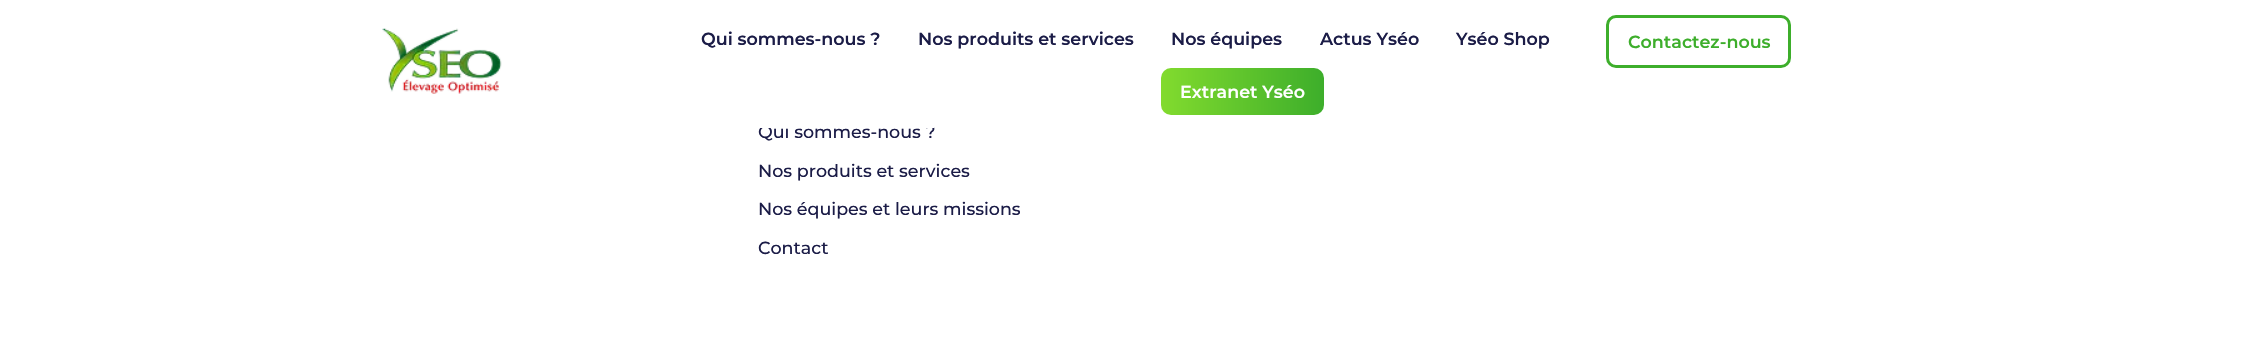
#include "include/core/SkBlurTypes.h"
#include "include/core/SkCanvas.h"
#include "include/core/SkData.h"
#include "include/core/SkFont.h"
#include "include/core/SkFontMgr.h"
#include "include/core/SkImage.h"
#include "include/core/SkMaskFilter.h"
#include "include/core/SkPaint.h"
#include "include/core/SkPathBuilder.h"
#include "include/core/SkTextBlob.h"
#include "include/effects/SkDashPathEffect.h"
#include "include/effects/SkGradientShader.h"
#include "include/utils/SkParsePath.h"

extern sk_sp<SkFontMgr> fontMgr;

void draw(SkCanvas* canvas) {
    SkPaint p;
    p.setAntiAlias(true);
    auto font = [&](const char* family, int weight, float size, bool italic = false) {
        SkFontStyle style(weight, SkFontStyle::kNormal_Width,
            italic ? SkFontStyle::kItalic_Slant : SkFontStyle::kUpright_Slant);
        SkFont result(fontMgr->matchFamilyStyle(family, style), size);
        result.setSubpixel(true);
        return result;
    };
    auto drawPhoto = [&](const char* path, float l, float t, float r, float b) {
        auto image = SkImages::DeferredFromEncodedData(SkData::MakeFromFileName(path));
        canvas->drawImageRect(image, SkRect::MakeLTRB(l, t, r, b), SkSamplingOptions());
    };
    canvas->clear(0xFFFFFFFF);
    auto font1 = font("Montserrat", 100, 17.5f);
    p.setColor(0xFF1B1C47);
    canvas->drawString("Qui sommes-nous ?", 758, 138, font1, p);
    p.setColor(0xFFFFFFFF);
    canvas->drawRect(SkRect::MakeLTRB(759, 124, 934, 128), p);
    drawPhoto("media/1.png", 382, 28, 502, 94);
    auto font2 = font("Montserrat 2", 100, 17.5f);
    p.setColor(0xFF1B1C47);
    {
        const struct { const char* s; float x, y; } items[] = {
            {"Qui sommes-nous ?", 701, 45},
            {"Nos produits et services", 918, 45},
            {"Nos équipes", 1171, 45},
            {"Actus Yséo", 1320, 45},
            {"Yséo Shop", 1456, 45},
        };
        for (auto [s, x, y] : items) {
            canvas->drawString(s, x, y, font2, p);
        }
    }
    p.setStyle(SkPaint::kStroke_Style);
    p.setStrokeWidth(3);
    p.setColor(0xFF3DAE2B);
    canvas->drawRoundRect(SkRect::MakeLTRB(1607.5f, 16.5f, 1789.5f, 66.5f), 8.5f, 8.5f, p);
    p.setStyle(SkPaint::kFill_Style);
    canvas->drawString("Contactez-nous", 1628, 48, font2, p);
    {
        const SkColor colors[] = {0xFF82DB2E, 0xFF3DAE2B};
        const float stops[] = {0, 1};
        const SkPoint ends[] = {{1161, 91}, {1324, 91}};
        p.setShader(SkGradientShader::MakeLinear(ends, colors, stops, 2, SkTileMode::kClamp));
        p.setAlpha(255);
    }
    canvas->drawRoundRect(SkRect::MakeLTRB(1161, 68, 1324, 115), 10, 10, p);
    p.setShader(nullptr);
    p.setColor(0xFFFFFFFF);
    canvas->drawString("Extranet Yséo", 1180, 98, font2, p);
    p.setColor(0xFF1B1C47);
    {
        const struct { const char* s; float x, y; } items[] = {
            {"Nos produits et services", 758, 177},
            {"Nos équipes et leurs missions", 758, 215},
            {"Contact", 758, 254},
        };
        for (auto [s, x, y] : items) {
            canvas->drawString(s, x, y, font1, p);
        }
    }
}
